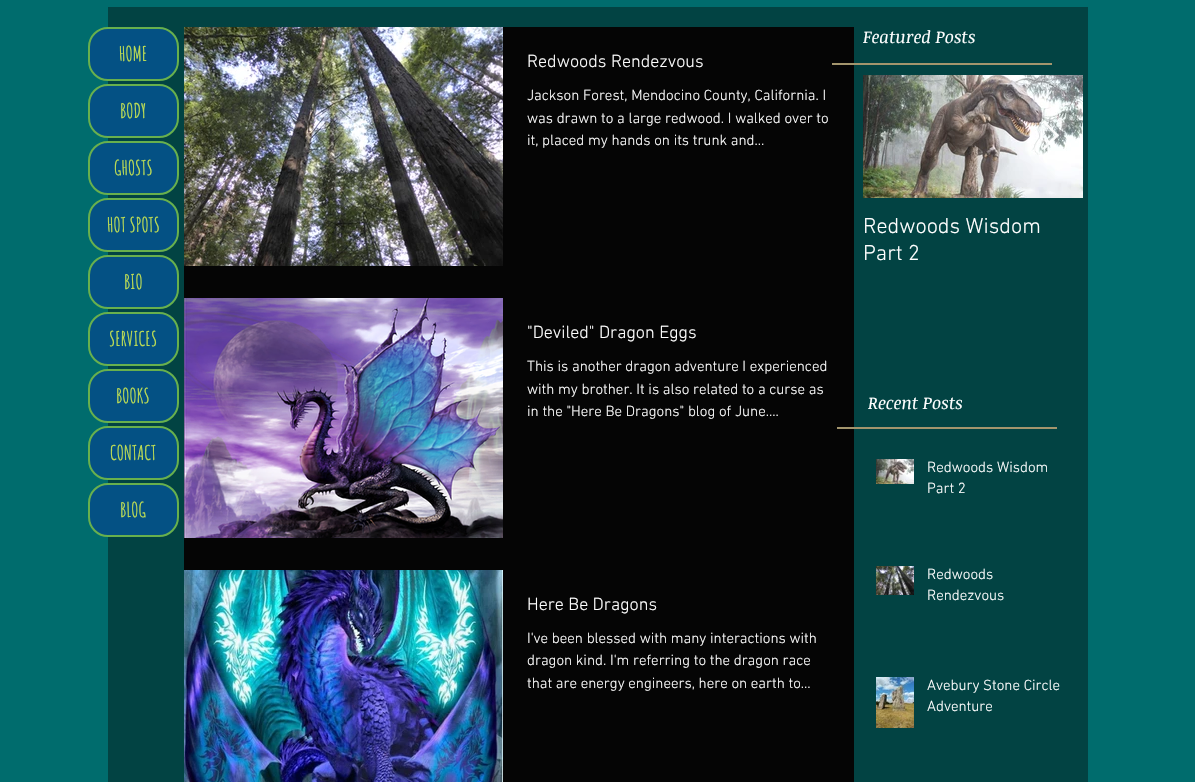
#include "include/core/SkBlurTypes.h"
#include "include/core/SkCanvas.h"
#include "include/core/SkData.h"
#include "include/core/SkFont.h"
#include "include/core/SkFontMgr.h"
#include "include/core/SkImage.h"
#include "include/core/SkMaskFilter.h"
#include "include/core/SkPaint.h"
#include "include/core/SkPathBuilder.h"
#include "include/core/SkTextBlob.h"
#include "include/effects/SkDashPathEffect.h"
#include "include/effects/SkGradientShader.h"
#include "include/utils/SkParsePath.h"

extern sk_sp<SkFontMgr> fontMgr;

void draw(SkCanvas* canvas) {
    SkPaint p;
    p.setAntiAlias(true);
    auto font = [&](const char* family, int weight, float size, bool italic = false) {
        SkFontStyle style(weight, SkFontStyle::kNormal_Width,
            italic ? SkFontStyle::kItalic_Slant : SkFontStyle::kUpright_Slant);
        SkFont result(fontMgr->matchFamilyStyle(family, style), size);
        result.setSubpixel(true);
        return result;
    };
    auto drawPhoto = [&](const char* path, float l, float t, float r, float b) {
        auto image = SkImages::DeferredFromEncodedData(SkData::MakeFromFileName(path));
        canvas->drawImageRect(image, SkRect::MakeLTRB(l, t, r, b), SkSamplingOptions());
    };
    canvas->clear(0xFF006C6D);
    p.setColor(0xFF024343);
    canvas->drawRect(SkRect::MakeLTRB(108, 7, 1088, 782), p);
    p.setColor(0xFF045184);
    canvas->drawRoundRect(SkRect::MakeLTRB(89, 28, 178, 80), 19, 19, p);
    p.setStyle(SkPaint::kStroke_Style);
    p.setStrokeWidth(2);
    p.setColor(0xFF68B04D);
    canvas->drawRoundRect(SkRect::MakeLTRB(89, 28, 178, 80), 19, 19, p);
    auto font1 = font("Amatic SC", 700, 20);
    p.setStyle(SkPaint::kFill_Style);
    p.setColor(0xFFBADA55);
    canvas->drawString("HOME", 119, 61, font1, p);
    p.setColor(0xFF045184);
    canvas->drawRoundRect(SkRect::MakeLTRB(89, 85, 178, 137), 19, 19, p);
    p.setStyle(SkPaint::kStroke_Style);
    p.setColor(0xFF68B04D);
    canvas->drawRoundRect(SkRect::MakeLTRB(89, 85, 178, 137), 19, 19, p);
    p.setStyle(SkPaint::kFill_Style);
    p.setColor(0xFFBADA55);
    canvas->drawString("BODY", 120, 118, font1, p);
    p.setColor(0xFF045184);
    canvas->drawRoundRect(SkRect::MakeLTRB(89, 142, 178, 194), 19, 19, p);
    p.setStyle(SkPaint::kStroke_Style);
    p.setColor(0xFF68B04D);
    canvas->drawRoundRect(SkRect::MakeLTRB(89, 142, 178, 194), 19, 19, p);
    p.setStyle(SkPaint::kFill_Style);
    p.setColor(0xFFBADA55);
    canvas->drawString("GHOSTS", 114, 175, font1, p);
    p.setColor(0xFF045184);
    canvas->drawRoundRect(SkRect::MakeLTRB(89, 199, 178, 251), 19, 19, p);
    p.setStyle(SkPaint::kStroke_Style);
    p.setColor(0xFF68B04D);
    canvas->drawRoundRect(SkRect::MakeLTRB(89, 199, 178, 251), 19, 19, p);
    p.setStyle(SkPaint::kFill_Style);
    p.setColor(0xFFBADA55);
    canvas->drawString("HOT SPOTS", 107, 232, font1, p);
    p.setColor(0xFF045184);
    canvas->drawRoundRect(SkRect::MakeLTRB(89, 256, 178, 308), 19, 19, p);
    p.setStyle(SkPaint::kStroke_Style);
    p.setColor(0xFF68B04D);
    canvas->drawRoundRect(SkRect::MakeLTRB(89, 256, 178, 308), 19, 19, p);
    p.setStyle(SkPaint::kFill_Style);
    p.setColor(0xFFBADA55);
    canvas->drawString("BIO", 124, 289, font1, p);
    p.setColor(0xFF045184);
    canvas->drawRoundRect(SkRect::MakeLTRB(89, 313, 178, 365), 19, 19, p);
    p.setStyle(SkPaint::kStroke_Style);
    p.setColor(0xFF68B04D);
    canvas->drawRoundRect(SkRect::MakeLTRB(89, 313, 178, 365), 19, 19, p);
    p.setStyle(SkPaint::kFill_Style);
    p.setColor(0xFFBADA55);
    canvas->drawString("SERVICES", 109, 346, font1, p);
    p.setColor(0xFF045184);
    canvas->drawRoundRect(SkRect::MakeLTRB(89, 370, 178, 422), 19, 19, p);
    p.setStyle(SkPaint::kStroke_Style);
    p.setColor(0xFF68B04D);
    canvas->drawRoundRect(SkRect::MakeLTRB(89, 370, 178, 422), 19, 19, p);
    p.setStyle(SkPaint::kFill_Style);
    p.setColor(0xFFBADA55);
    canvas->drawString("BOOKS", 116, 403, font1, p);
    p.setColor(0xFF045184);
    canvas->drawRoundRect(SkRect::MakeLTRB(89, 427, 178, 479), 19, 19, p);
    p.setStyle(SkPaint::kStroke_Style);
    p.setColor(0xFF68B04D);
    canvas->drawRoundRect(SkRect::MakeLTRB(89, 427, 178, 479), 19, 19, p);
    p.setStyle(SkPaint::kFill_Style);
    p.setColor(0xFFBADA55);
    canvas->drawString("CONTACT", 110, 460, font1, p);
    p.setColor(0xFF045184);
    canvas->drawRoundRect(SkRect::MakeLTRB(89, 484, 178, 536), 19, 19, p);
    p.setStyle(SkPaint::kStroke_Style);
    p.setColor(0xFF68B04D);
    canvas->drawRoundRect(SkRect::MakeLTRB(89, 484, 178, 536), 19, 19, p);
    p.setStyle(SkPaint::kFill_Style);
    p.setColor(0xFFBADA55);
    canvas->drawString("BLOG", 120, 517, font1, p);
    auto font2 = font("Noticia Text", 400, 17, true);
    p.setColor(0xFFFFFFFF);
    canvas->drawString("Featured Posts", 863, 43, font2, p);
    p.setColor(0xFF050505);
    canvas->drawRect(SkRect::MakeLTRB(184, 27, 854, 782), p);
    drawPhoto("media/1.png", 184, 27, 503, 266);
    auto font3 = font("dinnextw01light", 300, 18);
    p.setColor(0xFFFFFFFF);
    canvas->drawString("Redwoods Rendezvous", 527, 67, font3, p);
    auto font4 = font("dinnextw01light", 300, 15);
    {
        const struct { const char* s; float x, y; } items[] = {
            {"Jackson Forest, Mendocino County, California. I", 527, 100},
            {"was drawn to a large redwood. I walked over to", 527, 123},
            {"it, placed my hands on its trunk and...", 527, 145},
        };
        for (auto [s, x, y] : items) {
            canvas->drawString(s, x, y, font4, p);
        }
    }
    drawPhoto("media/2.png", 184, 298, 503, 538);
    canvas->drawString("\"Deviled\" Dragon Eggs", 527, 338, font3, p);
    {
        const struct { const char* s; float x, y; } items[] = {
            {"This is another dragon adventure I experienced", 527, 371},
            {"with my brother. It is also related to a curse as", 527, 394},
            {"in the \"Here Be Dragons\" blog of June....", 527, 416},
        };
        for (auto [s, x, y] : items) {
            canvas->drawString(s, x, y, font4, p);
        }
    }
    drawPhoto("media/3.png", 184, 570, 503, 782);
    canvas->drawString("Here Be Dragons", 527, 610, font3, p);
    {
        const struct { const char* s; float x, y; } items[] = {
            {"I've been blessed with many interactions with", 527, 643},
            {"dragon kind. I'm referring to the dragon race", 527, 665},
            {"that are energy engineers, here on earth to...", 527, 688},
        };
        for (auto [s, x, y] : items) {
            canvas->drawString(s, x, y, font4, p);
        }
    }
    p.setColor(0xFFA3956D);
    canvas->drawRect(SkRect::MakeLTRB(832, 63, 1052, 65), p);
    drawPhoto("media/5.png", 863, 75, 1083, 198);
    drawPhoto("media/4.png", 1043, 121, 1059, 150);
    auto font5 = font("dinnextw01light", 300, 22);
    p.setColor(0xFFFFFFFF);
    canvas->drawString("Redwoods Wisdom", 863, 233, font5, p);
    canvas->drawString("Part 2", 863, 260, font5, p);
    canvas->drawString("Recent Posts", 868, 409, font2, p);
    p.setColor(0xFFA3956D);
    canvas->drawRect(SkRect::MakeLTRB(837, 427, 1057, 429), p);
    drawPhoto("media/6.png", 876, 459, 914, 484);
    p.setColor(0xFFFFFFFF);
    canvas->drawString("Redwoods Wisdom", 927, 472, font4, p);
    canvas->drawString("Part 2", 927, 493, font4, p);
    drawPhoto("media/7.png", 876, 566, 914, 595);
    canvas->drawString("Redwoods", 927, 579, font4, p);
    canvas->drawString("Rendezvous", 927, 600, font4, p);
    drawPhoto("media/8.png", 876, 677, 914, 728);
    canvas->drawString("Avebury Stone Circle", 927, 690, font4, p);
    canvas->drawString("Adventure", 927, 711, font4, p);
}
